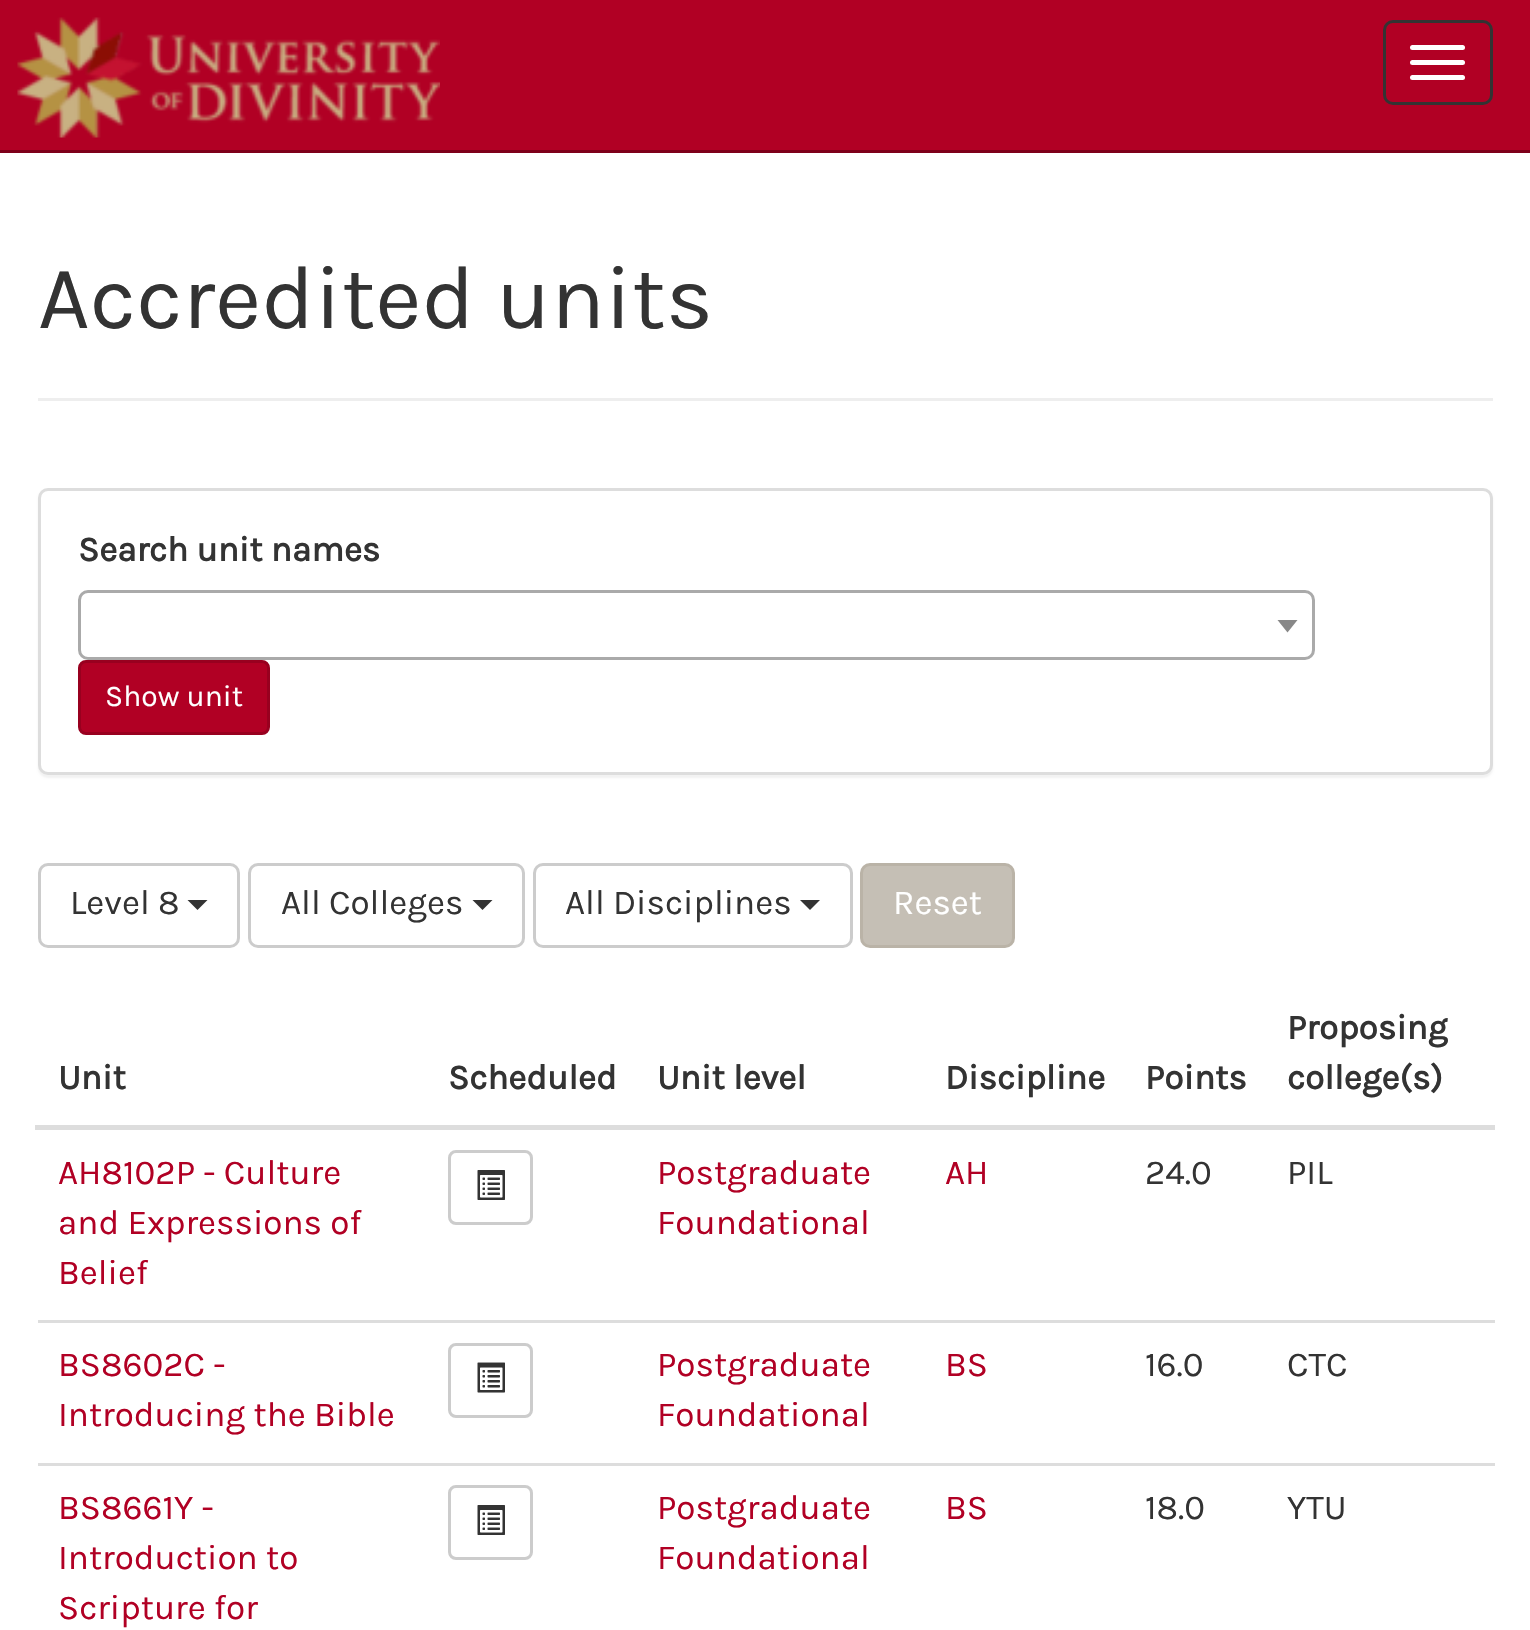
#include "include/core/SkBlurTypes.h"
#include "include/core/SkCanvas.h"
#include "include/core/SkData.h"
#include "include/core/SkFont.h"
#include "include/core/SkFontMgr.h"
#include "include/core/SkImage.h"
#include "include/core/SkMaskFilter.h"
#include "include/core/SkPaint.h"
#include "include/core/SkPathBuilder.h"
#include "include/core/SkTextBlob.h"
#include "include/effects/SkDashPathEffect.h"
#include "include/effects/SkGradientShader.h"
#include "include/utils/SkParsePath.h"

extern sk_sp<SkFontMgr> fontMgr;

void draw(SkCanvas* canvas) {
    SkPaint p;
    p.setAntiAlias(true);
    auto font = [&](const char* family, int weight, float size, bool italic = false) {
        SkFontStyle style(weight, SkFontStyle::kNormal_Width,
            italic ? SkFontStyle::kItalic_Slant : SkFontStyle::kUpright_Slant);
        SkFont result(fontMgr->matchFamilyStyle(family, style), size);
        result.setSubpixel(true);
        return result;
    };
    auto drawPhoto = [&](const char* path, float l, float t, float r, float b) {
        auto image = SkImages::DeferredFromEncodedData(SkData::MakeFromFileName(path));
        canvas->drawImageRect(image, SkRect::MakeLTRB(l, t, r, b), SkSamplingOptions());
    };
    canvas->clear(0xFFFFFFFF);
    p.setColor(0xFFB10024);
    canvas->drawRect(SkRect::MakeLTRB(0, 0, 1530, 150), p);
    p.setColor(0xFF7E001A);
    canvas->drawRect(SkRect::MakeLTRB(0, 150, 1530, 153), p);
    drawPhoto("media/1.png", 17, 17, 440, 138);
    p.setStyle(SkPaint::kStroke_Style);
    p.setStrokeWidth(3);
    p.setColor(0xFF333333);
    canvas->drawRoundRect(SkRect::MakeLTRB(1384.5f, 21.5f, 1491.5f, 103.5f), 8.5f, 8.5f, p);
    p.setStyle(SkPaint::kFill_Style);
    p.setColor(0xFFFFFFFF);
    canvas->drawRoundRect(SkRect::MakeLTRB(1410, 45, 1465, 50), 2.5f, 2.5f, p);
    canvas->drawRoundRect(SkRect::MakeLTRB(1410, 60, 1465, 65), 2.5f, 2.5f, p);
    canvas->drawRoundRect(SkRect::MakeLTRB(1410, 75, 1465, 80), 2.5f, 2.5f, p);
    p.setColor(0xFFEEEEEE);
    canvas->drawRect(SkRect::MakeLTRB(38, 398, 1493, 401), p);
    auto font1 = font("Karla", 400, 90);
    p.setColor(0xFF333333);
    canvas->drawString("Accredited units", 38, 328, font1, p);
    p.setColor(0x0D000000);
    p.setMaskFilter(SkMaskFilter::MakeBlur(kNormal_SkBlurStyle, 1));
    canvas->drawRoundRect(SkRect::MakeLTRB(38, 490, 1493, 778), 10, 10, p);
    p.setMaskFilter(nullptr);
    p.setColor(0xFFFFFFFF);
    canvas->drawRoundRect(SkRect::MakeLTRB(39.5f, 489.5f, 1491.5f, 773.5f), 8.5f, 8.5f, p);
    p.setStyle(SkPaint::kStroke_Style);
    p.setColor(0xFFDDDDDD);
    canvas->drawRoundRect(SkRect::MakeLTRB(39.5f, 489.5f, 1491.5f, 773.5f), 8.5f, 8.5f, p);
    auto font2 = font("Karla", 700, 35);
    p.setStyle(SkPaint::kFill_Style);
    p.setColor(0xFF333333);
    canvas->drawString("Search unit names", 78, 561, font2, p);
    p.setStyle(SkPaint::kStroke_Style);
    p.setColor(0xFFAAAAAA);
    canvas->drawRoundRect(SkRect::MakeLTRB(79.5f, 591.5f, 1313.5f, 658.5f), 8.5f, 8.5f, p);
    p.setStyle(SkPaint::kFill_Style);
    p.setColor(0xFF888888);
    canvas->drawPath(SkPathBuilder().moveTo(1277.5f, 620).lineTo(1297.5f, 620).lineTo(1287.5f, 632.5f).close().detach(), p);
    p.setColor(0xFFB10024);
    canvas->drawRoundRect(SkRect::MakeLTRB(79.5f, 661.5f, 268.5f, 733.5f), 6.5f, 6.5f, p);
    p.setStyle(SkPaint::kStroke_Style);
    p.setColor(0xFF98001F);
    canvas->drawRoundRect(SkRect::MakeLTRB(79.5f, 661.5f, 268.5f, 733.5f), 6.5f, 6.5f, p);
    auto font3 = font("Karla", 400, 30);
    p.setStyle(SkPaint::kFill_Style);
    p.setColor(0xFFFFFFFF);
    canvas->drawString("Show unit", 105, 706, font3, p);
    p.setStyle(SkPaint::kStroke_Style);
    p.setColor(0xFFCCCCCC);
    canvas->drawRoundRect(SkRect::MakeLTRB(39.5f, 864.5f, 238.5f, 946.5f), 8.5f, 8.5f, p);
    auto font4 = font("Karla", 400, 35);
    p.setStyle(SkPaint::kFill_Style);
    p.setColor(0xFF333333);
    canvas->drawString("Level 8", 70, 914, font4, p);
    canvas->drawPath(SkPathBuilder().moveTo(187.5f, 900).lineTo(207.5f, 900).lineTo(197.5f, 910).close().detach(), p);
    p.setStyle(SkPaint::kStroke_Style);
    p.setColor(0xFFCCCCCC);
    canvas->drawRoundRect(SkRect::MakeLTRB(249.5f, 864.5f, 523.5f, 946.5f), 8.5f, 8.5f, p);
    p.setStyle(SkPaint::kFill_Style);
    p.setColor(0xFF333333);
    canvas->drawString("All Colleges", 281, 914, font4, p);
    canvas->drawPath(SkPathBuilder().moveTo(472.5f, 900).lineTo(492.5f, 900).lineTo(482.5f, 910).close().detach(), p);
    p.setStyle(SkPaint::kStroke_Style);
    p.setColor(0xFFCCCCCC);
    canvas->drawRoundRect(SkRect::MakeLTRB(534.5f, 864.5f, 851.5f, 946.5f), 8.5f, 8.5f, p);
    p.setStyle(SkPaint::kFill_Style);
    p.setColor(0xFF333333);
    canvas->drawString("All Disciplines", 565, 914, font4, p);
    canvas->drawPath(SkPathBuilder().moveTo(800, 900).lineTo(820, 900).lineTo(810, 910).close().detach(), p);
    p.setColor(0xFFC5BFB5);
    canvas->drawRoundRect(SkRect::MakeLTRB(861.5f, 864.5f, 1013.5f, 946.5f), 8.5f, 8.5f, p);
    p.setStyle(SkPaint::kStroke_Style);
    p.setColor(0xFFBAB3A7);
    canvas->drawRoundRect(SkRect::MakeLTRB(861.5f, 864.5f, 1013.5f, 946.5f), 8.5f, 8.5f, p);
    p.setStyle(SkPaint::kFill_Style);
    p.setColor(0xFFFFFFFF);
    canvas->drawString("Reset", 893, 914, font4, p);
    p.setColor(0xFF333333);
    {
        const struct { const char* s; float x, y; } items[] = {
            {"Unit", 58, 1089},
            {"Scheduled", 448, 1089},
            {"Unit level", 657, 1089},
            {"Discipline", 945, 1089},
            {"Points", 1145, 1089},
        };
        for (auto [s, x, y] : items) {
            canvas->drawString(s, x, y, font2, p);
        }
    }
    p.setColor(0xFFDDDDDD);
    canvas->drawRect(SkRect::MakeLTRB(35, 1125, 1495, 1130), p);
    p.setColor(0xFF333333);
    canvas->drawString("Proposing", 1287, 1039, font2, p);
    canvas->drawString("college(s)", 1287, 1089, font2, p);
    p.setColor(0xFFB10024);
    {
        const struct { const char* s; float x, y; } items[] = {
            {"AH8102P - Culture", 58, 1184},
            {"and Expressions of", 58, 1234},
            {"Belief", 58, 1284},
        };
        for (auto [s, x, y] : items) {
            canvas->drawString(s, x, y, font4, p);
        }
    }
    p.setStyle(SkPaint::kStroke_Style);
    p.setColor(0xFFCCCCCC);
    canvas->drawRoundRect(SkRect::MakeLTRB(449.5f, 1151.5f, 531.5f, 1223.5f), 6.5f, 6.5f, p);
    drawPhoto("media/2.png", 477, 1170, 505, 1200);
    p.setStyle(SkPaint::kFill_Style);
    p.setColor(0xFFB10024);
    {
        const struct { const char* s; float x, y; } items[] = {
            {"Postgraduate", 657, 1184},
            {"Foundational", 657, 1234},
            {"AH", 945, 1184},
        };
        for (auto [s, x, y] : items) {
            canvas->drawString(s, x, y, font4, p);
        }
    }
    p.setColor(0xFF333333);
    canvas->drawString("24.0", 1145, 1184, font4, p);
    canvas->drawString("PIL", 1287, 1184, font4, p);
    p.setColor(0xFFB10024);
    canvas->drawString("BS8602C -", 58, 1376, font4, p);
    canvas->drawString("Introducing the Bible", 58, 1426, font4, p);
    p.setStyle(SkPaint::kStroke_Style);
    p.setColor(0xFFCCCCCC);
    canvas->drawRoundRect(SkRect::MakeLTRB(449.5f, 1344.5f, 531.5f, 1416.5f), 6.5f, 6.5f, p);
    drawPhoto("media/3.png", 477, 1362, 505, 1393);
    p.setStyle(SkPaint::kFill_Style);
    p.setColor(0xFFB10024);
    {
        const struct { const char* s; float x, y; } items[] = {
            {"Postgraduate", 657, 1376},
            {"Foundational", 657, 1426},
            {"BS", 945, 1376},
        };
        for (auto [s, x, y] : items) {
            canvas->drawString(s, x, y, font4, p);
        }
    }
    p.setColor(0xFF333333);
    canvas->drawString("16.0", 1145, 1376, font4, p);
    p.setColor(0xFFDDDDDD);
    canvas->drawRect(SkRect::MakeLTRB(38, 1320, 1495, 1323), p);
    p.setColor(0xFF333333);
    canvas->drawString("CTC", 1287, 1376, font4, p);
    p.setColor(0xFFB10024);
    {
        const struct { const char* s; float x, y; } items[] = {
            {"BS8661Y -", 58, 1519},
            {"Introduction to", 58, 1569},
            {"Scripture for", 58, 1619},
        };
        for (auto [s, x, y] : items) {
            canvas->drawString(s, x, y, font4, p);
        }
    }
    p.setStyle(SkPaint::kStroke_Style);
    p.setColor(0xFFCCCCCC);
    canvas->drawRoundRect(SkRect::MakeLTRB(449.5f, 1486.5f, 531.5f, 1558.5f), 6.5f, 6.5f, p);
    drawPhoto("media/2.png", 477, 1505, 505, 1535);
    p.setStyle(SkPaint::kFill_Style);
    p.setColor(0xFFB10024);
    {
        const struct { const char* s; float x, y; } items[] = {
            {"Postgraduate", 657, 1519},
            {"Foundational", 657, 1569},
            {"BS", 945, 1519},
        };
        for (auto [s, x, y] : items) {
            canvas->drawString(s, x, y, font4, p);
        }
    }
    p.setColor(0xFF333333);
    canvas->drawString("18.0", 1145, 1519, font4, p);
    p.setColor(0xFFDDDDDD);
    canvas->drawRect(SkRect::MakeLTRB(38, 1463, 1495, 1466), p);
    p.setColor(0xFF333333);
    canvas->drawString("YTU", 1287, 1519, font4, p);
}
